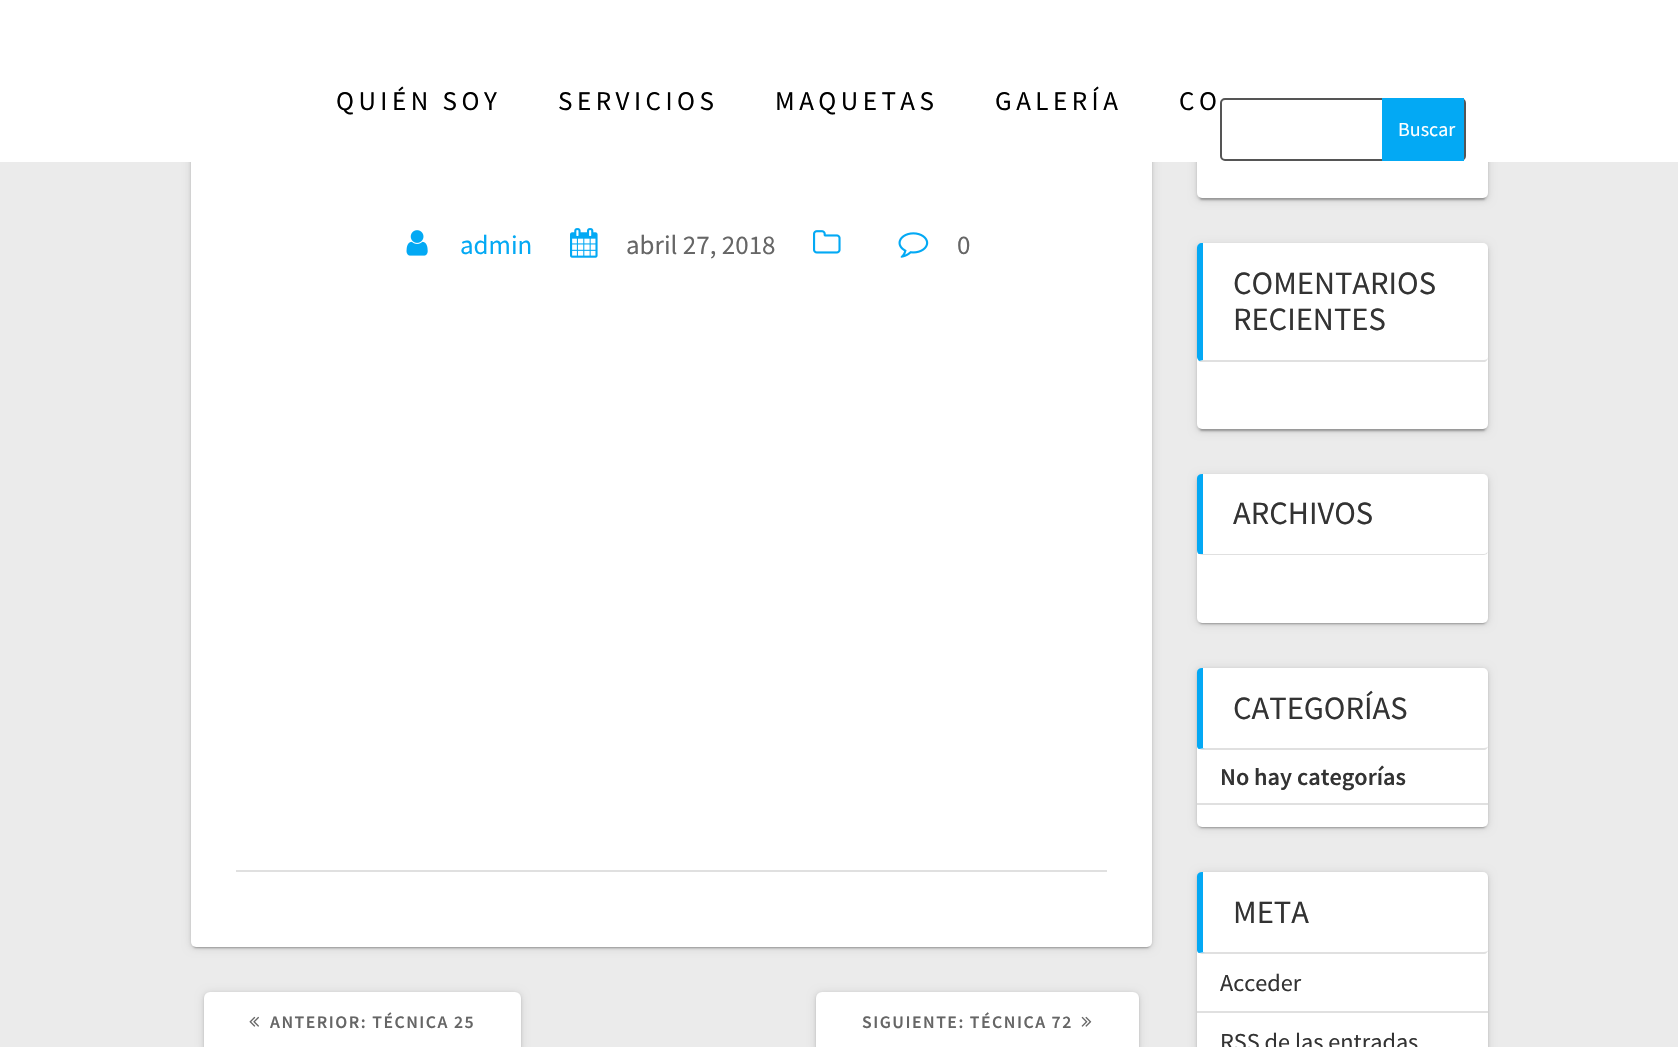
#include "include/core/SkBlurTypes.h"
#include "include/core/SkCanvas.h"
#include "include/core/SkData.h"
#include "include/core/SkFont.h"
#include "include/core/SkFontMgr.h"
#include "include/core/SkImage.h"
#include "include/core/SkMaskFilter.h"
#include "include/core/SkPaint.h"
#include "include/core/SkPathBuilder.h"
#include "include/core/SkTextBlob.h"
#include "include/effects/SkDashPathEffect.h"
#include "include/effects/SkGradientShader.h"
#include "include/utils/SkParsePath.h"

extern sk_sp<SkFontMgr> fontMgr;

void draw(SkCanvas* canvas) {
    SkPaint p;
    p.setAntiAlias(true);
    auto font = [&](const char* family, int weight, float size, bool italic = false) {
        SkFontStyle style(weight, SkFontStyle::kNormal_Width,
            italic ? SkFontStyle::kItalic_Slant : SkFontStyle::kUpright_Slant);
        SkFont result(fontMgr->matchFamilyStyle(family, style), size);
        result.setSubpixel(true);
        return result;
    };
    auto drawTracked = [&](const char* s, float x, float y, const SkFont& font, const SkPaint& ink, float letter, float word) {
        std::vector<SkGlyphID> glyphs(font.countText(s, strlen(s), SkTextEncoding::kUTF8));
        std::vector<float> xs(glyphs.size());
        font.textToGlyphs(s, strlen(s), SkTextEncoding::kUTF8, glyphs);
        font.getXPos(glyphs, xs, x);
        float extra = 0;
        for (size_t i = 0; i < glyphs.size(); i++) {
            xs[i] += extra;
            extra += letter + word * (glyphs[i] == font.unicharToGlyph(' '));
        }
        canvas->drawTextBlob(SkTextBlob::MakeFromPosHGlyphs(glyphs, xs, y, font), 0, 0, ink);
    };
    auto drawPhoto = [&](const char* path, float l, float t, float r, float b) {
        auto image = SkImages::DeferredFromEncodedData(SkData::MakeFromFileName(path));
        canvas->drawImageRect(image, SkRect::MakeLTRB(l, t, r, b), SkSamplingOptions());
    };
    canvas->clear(0xFFEBEBEB);
    p.setColor(0x1F000000);
    p.setMaskFilter(SkMaskFilter::MakeBlur(kNormal_SkBlurStyle, 4));
    canvas->drawRoundRect(SkRect::MakeLTRB(191, 77, 1152, 948), 5, 5, p);
    p.setMaskFilter(nullptr);
    p.setColor(0x33000000);
    p.setMaskFilter(SkMaskFilter::MakeBlur(kNormal_SkBlurStyle, 1));
    canvas->drawRoundRect(SkRect::MakeLTRB(194, 83, 1149, 948), 1.5f, 1.5f, p);
    p.setMaskFilter(nullptr);
    p.setColor(0x24000000);
    p.setMaskFilter(SkMaskFilter::MakeBlur(kNormal_SkBlurStyle, 1.5f));
    canvas->drawRoundRect(SkRect::MakeLTRB(191, 77, 1152, 948), 5, 5, p);
    p.setMaskFilter(nullptr);
    p.setColor(0xFFFFFFFF);
    canvas->drawRoundRect(SkRect::MakeLTRB(191, 75, 1152, 947), 5, 5, p);
    p.setColor(0x1F000000);
    p.setMaskFilter(SkMaskFilter::MakeBlur(kNormal_SkBlurStyle, 4));
    canvas->drawRoundRect(SkRect::MakeLTRB(1197, 77, 1488, 200), 5, 5, p);
    p.setMaskFilter(nullptr);
    p.setColor(0x33000000);
    p.setMaskFilter(SkMaskFilter::MakeBlur(kNormal_SkBlurStyle, 1));
    canvas->drawRoundRect(SkRect::MakeLTRB(1200, 83, 1485, 200), 1.5f, 1.5f, p);
    p.setMaskFilter(nullptr);
    p.setColor(0x24000000);
    p.setMaskFilter(SkMaskFilter::MakeBlur(kNormal_SkBlurStyle, 1.5f));
    canvas->drawRoundRect(SkRect::MakeLTRB(1197, 77, 1488, 200), 5, 5, p);
    p.setMaskFilter(nullptr);
    p.setColor(0xFFFFFFFF);
    canvas->drawRoundRect(SkRect::MakeLTRB(1197, 75, 1488, 198), 5, 5, p);
    canvas->drawRect(SkRect::MakeLTRB(0, 0, 1678, 162), p);
    auto font1 = font("Source Sans Pro", 400, 27);
    p.setColor(0xFF000000);
    {
        const struct { const char* s; float x, y; } items[] = {
            {"QUIÉN SOY", 336, 110},
            {"SERVICIOS", 558, 110},
            {"MAQUETAS", 775, 110},
            {"GALERÍA", 995, 110},
            {"CO", 1179, 110},
        };
        for (auto [s, x, y] : items) {
            drawTracked(s, x, y, font1, p, 4.5f, 0);
        }
    }
    drawPhoto("media/1.png", 406, 230, 428, 256);
    p.setColor(0xFF03A9F4);
    canvas->drawString("admin", 460, 254, font1, p);
    drawPhoto("media/2.png", 570, 228, 598, 258);
    p.setColor(0xFF666666);
    canvas->drawString("abril 27, 2018", 626, 254, font1, p);
    drawPhoto("media/3.png", 813, 230, 841, 254);
    drawPhoto("media/4.png", 898, 232, 929, 258);
    canvas->drawString("0", 957, 254, font1, p);
    p.setColor(0xFFE0E0E0);
    canvas->drawRect(SkRect::MakeLTRB(236, 870, 1107, 872), p);
    p.setColor(0x1F000000);
    p.setMaskFilter(SkMaskFilter::MakeBlur(kNormal_SkBlurStyle, 4));
    canvas->drawRoundRect(SkRect::MakeLTRB(204, 993, 521, 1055), 6, 6, p);
    p.setMaskFilter(nullptr);
    p.setColor(0x24000000);
    p.setMaskFilter(SkMaskFilter::MakeBlur(kNormal_SkBlurStyle, 1.5f));
    canvas->drawRoundRect(SkRect::MakeLTRB(204, 993, 521, 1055), 6, 6, p);
    p.setMaskFilter(nullptr);
    p.setColor(0xFFFFFFFF);
    canvas->drawRoundRect(SkRect::MakeLTRB(204, 992, 521, 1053), 6, 6, p);
    drawPhoto("media/5.png", 249, 1016, 259, 1027);
    auto font2 = font("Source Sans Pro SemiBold", 600, 17.75f);
    p.setColor(0xFF666666);
    drawTracked("ANTERIOR: TÉCNICA 25", 270, 1028, font2, p, 1.5f, 0);
    p.setColor(0x1F000000);
    p.setMaskFilter(SkMaskFilter::MakeBlur(kNormal_SkBlurStyle, 4));
    canvas->drawRoundRect(SkRect::MakeLTRB(816, 993, 1139, 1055), 6, 6, p);
    p.setMaskFilter(nullptr);
    p.setColor(0x24000000);
    p.setMaskFilter(SkMaskFilter::MakeBlur(kNormal_SkBlurStyle, 1.5f));
    canvas->drawRoundRect(SkRect::MakeLTRB(816, 993, 1139, 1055), 6, 6, p);
    p.setMaskFilter(nullptr);
    p.setColor(0xFFFFFFFF);
    canvas->drawRoundRect(SkRect::MakeLTRB(816, 992, 1139, 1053), 6, 6, p);
    p.setColor(0xFF666666);
    drawTracked("SIGUIENTE: TÉCNICA 72", 862, 1028, font2, p, 1.5f, 0);
    drawPhoto("media/6.png", 1081, 1016, 1092, 1027);
    p.setStyle(SkPaint::kStroke_Style);
    p.setStrokeWidth(2);
    p.setColor(0xFF555555);
    canvas->drawRoundRect(SkRect::MakeLTRB(1221, 99, 1465, 160), 4, 4, p);
    p.setStyle(SkPaint::kFill_Style);
    p.setColor(0xFF03A9F4);
    canvas->drawRect(SkRect::MakeLTRB(1382, 98, 1464, 161), p);
    auto font3 = font("Source Sans Pro", 400, 20);
    p.setColor(0xFFFFFFFF);
    canvas->drawString("Buscar", 1398, 136, font3, p);
    p.setColor(0x1F000000);
    p.setMaskFilter(SkMaskFilter::MakeBlur(kNormal_SkBlurStyle, 4));
    canvas->drawRoundRect(SkRect::MakeLTRB(1197, 245, 1488, 431), 5, 5, p);
    p.setMaskFilter(nullptr);
    p.setColor(0x33000000);
    p.setMaskFilter(SkMaskFilter::MakeBlur(kNormal_SkBlurStyle, 1));
    canvas->drawRoundRect(SkRect::MakeLTRB(1200, 251, 1485, 431), 1.5f, 1.5f, p);
    p.setMaskFilter(nullptr);
    p.setColor(0x24000000);
    p.setMaskFilter(SkMaskFilter::MakeBlur(kNormal_SkBlurStyle, 1.5f));
    canvas->drawRoundRect(SkRect::MakeLTRB(1197, 245, 1488, 431), 5, 5, p);
    p.setMaskFilter(nullptr);
    p.setColor(0xFFFFFFFF);
    canvas->drawRoundRect(SkRect::MakeLTRB(1197, 243, 1488, 429), 5, 5, p);
    p.setColor(0xFFE0E0E0);
    canvas->drawPath(SkPathBuilder().moveTo(1200, 362).lineTo(1199, 361).lineTo(1203, 360).lineTo(1484, 360).cubicTo(1486, 360, 1488, 359, 1488, 357).cubicTo(1488, 359, 1487, 361, 1485, 362).close().detach(), p);
    p.setColor(0xFF03A8F4);
    canvas->drawPath(SkPathBuilder().moveTo(1202, 243).lineTo(1203, 243).lineTo(1203, 360).lineTo(1199, 361).cubicTo(1198, 360, 1197, 358, 1197, 357).lineTo(1197, 248).cubicTo(1197, 245, 1199, 243, 1202, 243).close().detach(), p);
    auto font4 = font("Source Sans Pro", 400, 32.5f);
    p.setColor(0xFF333333);
    canvas->drawString("COMENTARIOS", 1233, 294, font4, p);
    canvas->drawString("RECIENTES", 1233, 330, font4, p);
    p.setColor(0x1F000000);
    p.setMaskFilter(SkMaskFilter::MakeBlur(kNormal_SkBlurStyle, 4));
    canvas->drawRoundRect(SkRect::MakeLTRB(1197, 476, 1488, 624), 5, 5, p);
    p.setMaskFilter(nullptr);
    p.setColor(0x33000000);
    p.setMaskFilter(SkMaskFilter::MakeBlur(kNormal_SkBlurStyle, 1));
    canvas->drawRoundRect(SkRect::MakeLTRB(1200, 482, 1485, 624), 1.5f, 1.5f, p);
    p.setMaskFilter(nullptr);
    p.setColor(0x24000000);
    p.setMaskFilter(SkMaskFilter::MakeBlur(kNormal_SkBlurStyle, 1.5f));
    canvas->drawRoundRect(SkRect::MakeLTRB(1197, 476, 1488, 624), 5, 5, p);
    p.setMaskFilter(nullptr);
    p.setColor(0xFFFFFFFF);
    canvas->drawRoundRect(SkRect::MakeLTRB(1197, 474, 1488, 623), 5, 5, p);
    p.setColor(0xFFE0E0E0);
    canvas->drawPath(SkPathBuilder().moveTo(1202, 555).lineTo(1484, 555).lineTo(1487, 554).lineTo(1488, 550).cubicTo(1488, 552, 1486, 554, 1484, 554).lineTo(1203, 554).lineTo(1199, 554).close().detach(), p);
    p.setColor(0xFF03A8F4);
    canvas->drawPath(SkPathBuilder().moveTo(1202, 474).lineTo(1203, 474).lineTo(1203, 554).lineTo(1199, 554).cubicTo(1198, 554, 1197, 552, 1197, 550).lineTo(1197, 478).cubicTo(1197, 476, 1199, 474, 1202, 474).close().detach(), p);
    p.setColor(0xFF333333);
    canvas->drawString("ARCHIVOS", 1233, 524, font4, p);
    p.setColor(0x1F000000);
    p.setMaskFilter(SkMaskFilter::MakeBlur(kNormal_SkBlurStyle, 4));
    canvas->drawRoundRect(SkRect::MakeLTRB(1197, 669, 1488, 828), 5, 5, p);
    p.setMaskFilter(nullptr);
    p.setColor(0x33000000);
    p.setMaskFilter(SkMaskFilter::MakeBlur(kNormal_SkBlurStyle, 1));
    canvas->drawRoundRect(SkRect::MakeLTRB(1200, 675, 1485, 828), 1.5f, 1.5f, p);
    p.setMaskFilter(nullptr);
    p.setColor(0x24000000);
    p.setMaskFilter(SkMaskFilter::MakeBlur(kNormal_SkBlurStyle, 1.5f));
    canvas->drawRoundRect(SkRect::MakeLTRB(1197, 669, 1488, 828), 5, 5, p);
    p.setMaskFilter(nullptr);
    p.setColor(0xFFFFFFFF);
    canvas->drawRoundRect(SkRect::MakeLTRB(1197, 668, 1488, 827), 5, 5, p);
    p.setColor(0xFFE0E0E0);
    canvas->drawPath(SkPathBuilder().moveTo(1202, 750).lineTo(1484, 750).cubicTo(1486, 750, 1488, 748, 1488, 746).cubicTo(1488, 747, 1486, 748, 1484, 748).lineTo(1205, 748).lineTo(1199, 749).close().detach(), p);
    p.setColor(0xFF03A8F4);
    canvas->drawPath(SkPathBuilder().moveTo(1202, 668).lineTo(1203, 668).lineTo(1203, 748).lineTo(1205, 748).lineTo(1199, 749).cubicTo(1198, 749, 1197, 747, 1197, 746).lineTo(1197, 672).cubicTo(1197, 670, 1199, 668, 1202, 668).close().detach(), p);
    p.setColor(0xFF333333);
    canvas->drawString("CATEGORÍAS", 1233, 719, font4, p);
    p.setColor(0xFFE0E0E0);
    canvas->drawRect(SkRect::MakeLTRB(1197, 803, 1488, 805), p);
    auto font5 = font("Source Sans Pro SemiBold", 600, 24.25f);
    p.setColor(0xFF333333);
    canvas->drawString("No hay categorías", 1220, 785, font5, p);
    p.setColor(0x1F000000);
    p.setMaskFilter(SkMaskFilter::MakeBlur(kNormal_SkBlurStyle, 4));
    canvas->drawRoundRect(SkRect::MakeLTRB(1197, 873, 1488, 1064), 5, 5, p);
    p.setMaskFilter(nullptr);
    p.setColor(0x24000000);
    p.setMaskFilter(SkMaskFilter::MakeBlur(kNormal_SkBlurStyle, 1.5f));
    canvas->drawRoundRect(SkRect::MakeLTRB(1197, 873, 1488, 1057), 5, 5, p);
    p.setMaskFilter(nullptr);
    p.setColor(0xFFFFFFFF);
    canvas->drawRoundRect(SkRect::MakeLTRB(1197, 872, 1488, 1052), 5, 5, p);
    p.setColor(0xFFE0E0E0);
    canvas->drawPath(SkPathBuilder().moveTo(1202, 954).lineTo(1484, 954).cubicTo(1486, 954, 1488, 952, 1488, 950).cubicTo(1488, 951, 1486, 952, 1484, 952).lineTo(1205, 952).lineTo(1199, 953).close().detach(), p);
    p.setColor(0xFF03A8F4);
    canvas->drawPath(SkPathBuilder().moveTo(1202, 872).lineTo(1203, 872).lineTo(1203, 952).lineTo(1205, 952).lineTo(1199, 953).cubicTo(1198, 953, 1197, 951, 1197, 950).lineTo(1197, 876).cubicTo(1197, 874, 1199, 872, 1202, 872).close().detach(), p);
    p.setColor(0xFF333333);
    canvas->drawString("META", 1233, 923, font4, p);
    p.setColor(0xFFE0E0E0);
    canvas->drawRect(SkRect::MakeLTRB(1197, 1011, 1488, 1013), p);
    auto font6 = font("Source Sans Pro", 400, 24.25f);
    p.setColor(0xFF333333);
    canvas->drawString("Acceder", 1220, 991, font6, p);
    canvas->drawString("RSS de las entradas", 1220, 1050, font6, p);
}
